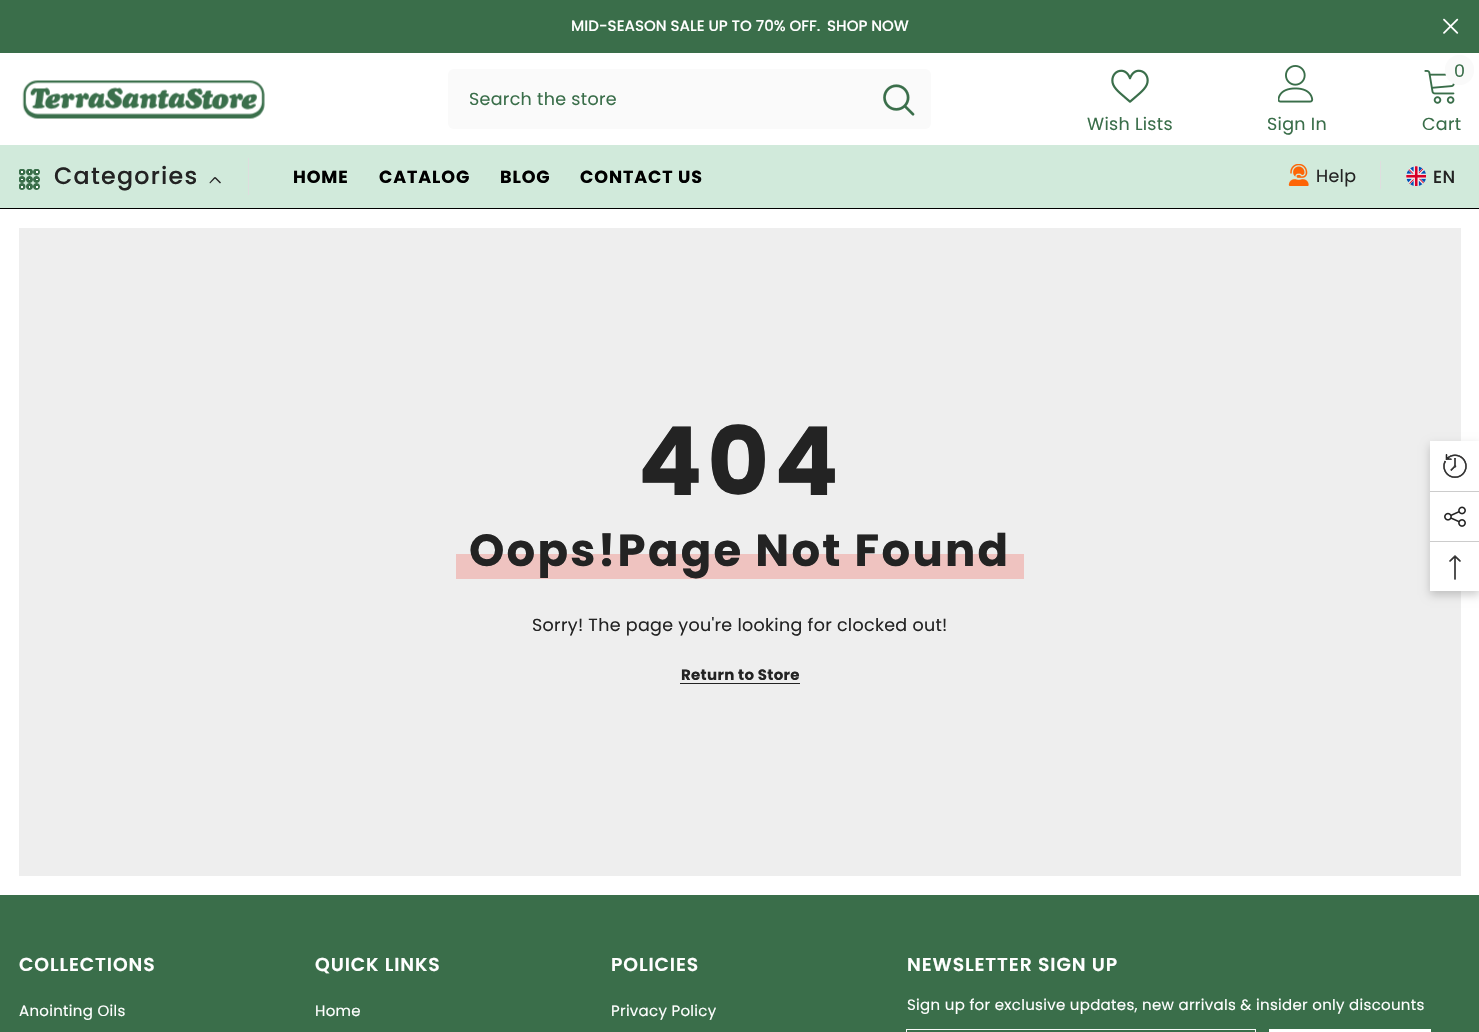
#include "include/core/SkBlurTypes.h"
#include "include/core/SkCanvas.h"
#include "include/core/SkData.h"
#include "include/core/SkFont.h"
#include "include/core/SkFontMgr.h"
#include "include/core/SkImage.h"
#include "include/core/SkMaskFilter.h"
#include "include/core/SkPaint.h"
#include "include/core/SkPathBuilder.h"
#include "include/core/SkTextBlob.h"
#include "include/effects/SkDashPathEffect.h"
#include "include/effects/SkGradientShader.h"
#include "include/utils/SkParsePath.h"

extern sk_sp<SkFontMgr> fontMgr;

void draw(SkCanvas* canvas) {
    SkPaint p;
    p.setAntiAlias(true);
    auto font = [&](const char* family, int weight, float size, bool italic = false) {
        SkFontStyle style(weight, SkFontStyle::kNormal_Width,
            italic ? SkFontStyle::kItalic_Slant : SkFontStyle::kUpright_Slant);
        SkFont result(fontMgr->matchFamilyStyle(family, style), size);
        result.setSubpixel(true);
        return result;
    };
    auto drawTracked = [&](const char* s, float x, float y, const SkFont& font, const SkPaint& ink, float letter, float word) {
        std::vector<SkGlyphID> glyphs(font.countText(s, strlen(s), SkTextEncoding::kUTF8));
        std::vector<float> xs(glyphs.size());
        font.textToGlyphs(s, strlen(s), SkTextEncoding::kUTF8, glyphs);
        font.getXPos(glyphs, xs, x);
        float extra = 0;
        for (size_t i = 0; i < glyphs.size(); i++) {
            xs[i] += extra;
            extra += letter + word * (glyphs[i] == font.unicharToGlyph(' '));
        }
        canvas->drawTextBlob(SkTextBlob::MakeFromPosHGlyphs(glyphs, xs, y, font), 0, 0, ink);
    };
    auto drawPhoto = [&](const char* path, float l, float t, float r, float b) {
        auto image = SkImages::DeferredFromEncodedData(SkData::MakeFromFileName(path));
        canvas->drawImageRect(image, SkRect::MakeLTRB(l, t, r, b), SkSamplingOptions());
    };
    canvas->clear(0xFFFFFFFF);
    p.setColor(0xFF3A6E4A);
    canvas->drawRect(SkRect::MakeLTRB(0, 0, 1479, 53), p);
    auto font1 = font("Poppins", 500, 15);
    p.setColor(0xFFFFFFFF);
    canvas->drawString("MID-SEASON SALE UP TO 70% OFF.", 571, 31, font1, p);
    canvas->drawString("SHOP NOW", 827, 31, font1, p);
    drawPhoto("media/1.png", 1443, 18, 1459, 34);
    drawPhoto("media/2.png", 22, 80, 265, 119);
    p.setColor(0xFFFAFAFA);
    canvas->drawRoundRect(SkRect::MakeLTRB(448, 69, 931, 129), 6, 6, p);
    auto font2 = font("Poppins", 400, 17.5f);
    p.setColor(0xFF3A6E4A);
    drawTracked("Search the store", 469, 105, font2, p, 0.3f, 0);
    drawPhoto("media/3.png", 883, 84, 915, 116);
    drawPhoto("media/4.png", 1424, 70, 1455, 104);
    p.setColor(0xFFFAFAFA);
    canvas->drawRoundRect(SkRect::MakeLTRB(1445, 55, 1474, 85), 14.5f, 14.5f, p);
    p.setColor(0xFF3A6E4A);
    canvas->drawString("0", 1454, 77, font2, p);
    drawTracked("Cart", 1422, 130, font2, p, 0.3f, 0);
    drawPhoto("media/5.png", 1111, 69, 1149, 103);
    drawTracked("Wish Lists", 1087, 130, font2, p, 0.3f, 0);
    drawPhoto("media/6.png", 1278, 65, 1314, 103);
    drawTracked("Sign In", 1267, 130, font2, p, 0.3f, 0);
    p.setColor(0xFFD1EADB);
    canvas->drawRect(SkRect::MakeLTRB(0, 145, 1479, 208), p);
    p.setColor(0xFF000000);
    canvas->drawRect(SkRect::MakeLTRB(0, 208, 1479, 209), p);
    drawPhoto("media/7.png", 19, 169, 40, 190);
    auto font3 = font("Poppins", 500, 23.75f);
    p.setColor(0xFF232323);
    drawTracked("Categories", 54, 184, font3, p, 1.25f, 0);
    canvas->drawPath(SkPathBuilder().moveTo(209.5f, 182.5f).lineTo(214.5f, 177).lineTo(215.5f, 178).lineTo(210, 183.5f).close().detach(), p);
    canvas->drawPath(SkPathBuilder().moveTo(220, 183.5f).lineTo(214.5f, 178).lineTo(215.5f, 177).lineTo(221, 182.5f).close().detach(), p);
    p.setColor(0xFFDEDEDE);
    canvas->drawRect(SkRect::MakeLTRB(248, 158, 249, 195), p);
    auto font4 = font("Poppins", 700, 17.5f);
    p.setColor(0xFF000000);
    {
        const struct { const char* s; float x, y; } items[] = {
            {"HOME", 293, 183},
            {"CATALOG", 379, 183},
            {"BLOG", 500, 183},
            {"CONTACT US", 580, 183},
        };
        for (auto [s, x, y] : items) {
            drawTracked(s, x, y, font4, p, 0.9f, 0);
        }
    }
    drawPhoto("media/8.png", 1288, 164, 1309, 186);
    p.setColor(0xFF232323);
    drawTracked("Help", 1316, 182, font2, p, 0.3f, 0);
    p.setColor(0xFFDEDEDE);
    canvas->drawRect(SkRect::MakeLTRB(1380, 161, 1381, 189), p);
    drawPhoto("media/9.png", 1406, 166, 1426, 186);
    auto font5 = font("Poppins", 500, 17.5f);
    p.setColor(0xFF232323);
    drawTracked("EN", 1433, 183, font5, p, 0.3f, 0);
    p.setColor(0xFFEEEEEE);
    canvas->drawRect(SkRect::MakeLTRB(19, 228, 1461, 876), p);
    auto font6 = font("Poppins", 700, 95);
    p.setColor(0xFF232323);
    drawTracked("404", 638, 495, font6, p, 5, 0);
    p.setColor(0xFFEFC3C0);
    canvas->drawRect(SkRect::MakeLTRB(456, 554, 1024, 579), p);
    auto font7 = font("Poppins", 700, 45);
    p.setColor(0xFF232323);
    drawTracked("Oops!Page Not Found", 469, 566, font7, p, 2.25f, 0);
    drawTracked("Sorry! The page you're looking for clocked out!", 532, 631, font2, p, 0.3f, 0);
    auto font8 = font("Poppins", 700, 15);
    drawTracked("Return to Store", 681, 680, font8, p, 0.3f, 0);
    canvas->drawRect(SkRect::MakeLTRB(680, 683, 800, 684), p);
    p.setColor(0xFF3A6E4A);
    canvas->drawRect(SkRect::MakeLTRB(0, 895, 1479, 1032), p);
    auto font9 = font("Poppins", 600, 18.75f);
    p.setColor(0xFFFFFFFF);
    drawTracked("COLLECTIONS", 19, 971, font9, p, 0.9f, 0);
    auto font10 = font("Poppins", 400, 15);
    drawTracked("Anointing Oils", 19, 1016, font10, p, 0.3f, 0);
    drawTracked("QUICK LINKS", 315, 971, font9, p, 0.9f, 0);
    drawTracked("Home", 315, 1016, font10, p, 0.3f, 0);
    drawTracked("POLICIES", 611, 971, font9, p, 0.9f, 0);
    drawTracked("Privacy Policy", 611, 1016, font10, p, 0.3f, 0);
    drawTracked("NEWSLETTER SIGN UP", 907, 971, font9, p, 0.9f, 0);
    drawTracked("Sign up for exclusive updates, new arrivals & insider only discounts", 907, 1010, font10, p, 0.3f, 0);
    p.setStyle(SkPaint::kStroke_Style);
    p.setStrokeWidth(1);
    p.setColor(0xFFFAFAFA);
    canvas->drawRect(SkRect::MakeLTRB(906.5f, 1029.5f, 1255.5f, 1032.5f), p);
    p.setStyle(SkPaint::kFill_Style);
    p.setColor(0xFFFFFFFF);
    canvas->drawRect(SkRect::MakeLTRB(1269, 1029, 1431, 1032), p);
    p.setColor(0x33000000);
    p.setMaskFilter(SkMaskFilter::MakeBlur(kNormal_SkBlurStyle, 4.5f));
    canvas->drawRect(SkRect::MakeLTRB(1430, 445, 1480, 595), p);
    p.setMaskFilter(nullptr);
    p.setColor(0xFFFFFFFF);
    canvas->drawRect(SkRect::MakeLTRB(1430, 441, 1479, 591), p);
    drawPhoto("media/10.png", 1443, 454, 1467, 478);
    p.setColor(0xFFCCCCCC);
    canvas->drawRect(SkRect::MakeLTRB(1430, 491, 1479, 492), p);
    drawPhoto("media/11.png", 1444, 506, 1466, 527);
    canvas->drawRect(SkRect::MakeLTRB(1430, 541, 1479, 542), p);
    drawPhoto("media/12.png", 1449, 555, 1461, 580);
}
